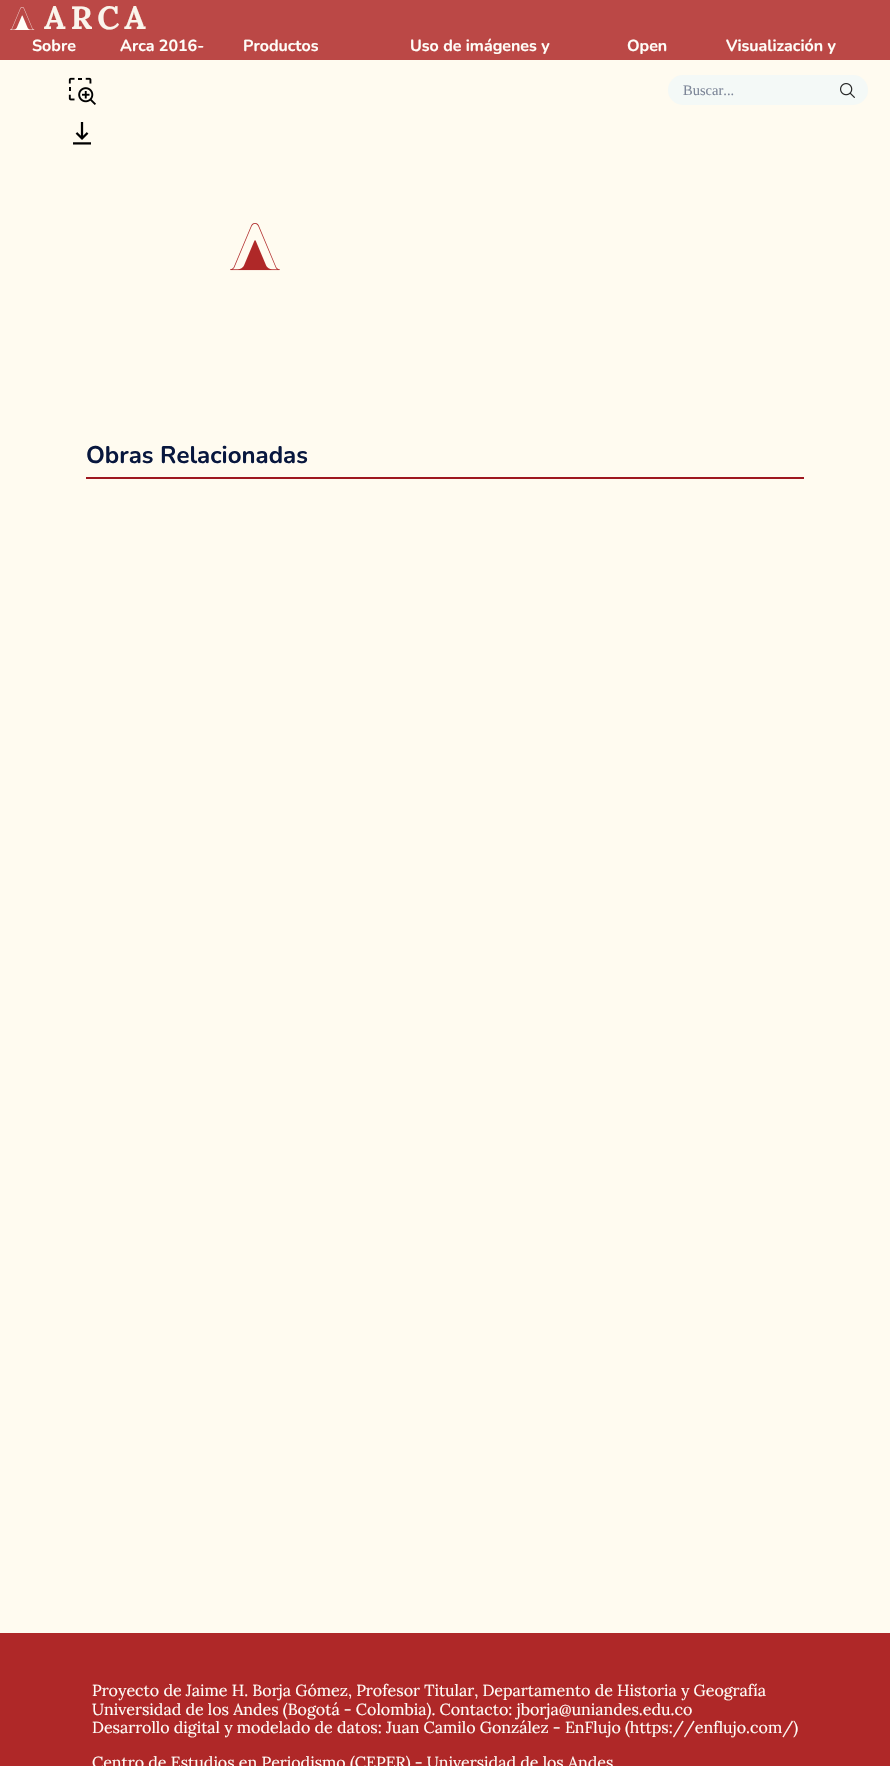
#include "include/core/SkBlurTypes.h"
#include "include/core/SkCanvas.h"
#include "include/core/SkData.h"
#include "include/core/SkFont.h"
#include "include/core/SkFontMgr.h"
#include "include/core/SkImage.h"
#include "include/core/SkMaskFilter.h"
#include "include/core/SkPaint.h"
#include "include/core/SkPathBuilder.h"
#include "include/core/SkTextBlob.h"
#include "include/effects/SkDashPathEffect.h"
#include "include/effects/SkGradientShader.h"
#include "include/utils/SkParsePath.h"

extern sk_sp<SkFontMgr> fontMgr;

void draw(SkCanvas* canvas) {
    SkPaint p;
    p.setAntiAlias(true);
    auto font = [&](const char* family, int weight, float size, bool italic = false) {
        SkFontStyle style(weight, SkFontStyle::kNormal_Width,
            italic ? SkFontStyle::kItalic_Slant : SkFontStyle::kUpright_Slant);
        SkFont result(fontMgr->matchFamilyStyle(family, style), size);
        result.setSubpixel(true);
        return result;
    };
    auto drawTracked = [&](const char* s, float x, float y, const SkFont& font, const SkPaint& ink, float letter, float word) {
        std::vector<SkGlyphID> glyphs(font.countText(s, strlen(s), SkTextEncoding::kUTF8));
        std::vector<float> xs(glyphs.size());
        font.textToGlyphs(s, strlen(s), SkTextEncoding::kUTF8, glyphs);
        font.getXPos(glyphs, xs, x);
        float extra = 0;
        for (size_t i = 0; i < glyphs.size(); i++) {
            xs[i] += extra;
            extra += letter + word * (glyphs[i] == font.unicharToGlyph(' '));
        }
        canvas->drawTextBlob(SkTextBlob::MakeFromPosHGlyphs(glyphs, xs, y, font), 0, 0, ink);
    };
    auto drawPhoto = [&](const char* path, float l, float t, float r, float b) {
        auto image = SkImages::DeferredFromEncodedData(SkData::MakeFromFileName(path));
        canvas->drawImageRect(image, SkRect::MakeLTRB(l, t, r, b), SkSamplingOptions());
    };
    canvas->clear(0xFFFFFBF0);
    p.setColor(0xFFBB4846);
    canvas->drawRect(SkRect::MakeLTRB(0, 0, 890, 60), p);
    drawPhoto("media/1.png", 10, 7, 35, 30);
    auto font1 = font("Lora", 700, 32);
    p.setColor(0xFFFAF5EC);
    drawTracked("ARCA", 44, 29, font1, p, 5, 0);
    auto font2 = font("Nunito", 700, 16);
    p.setColor(0xFFFFFDF8);
    {
        const struct { const char* s; float x, y; } items[] = {
            {"Sobre", 32, 51},
            {"Arca 2016-", 120, 51},
            {"Productos", 243, 51},
            {"Uso de imágenes y", 410, 51},
            {"Open", 627, 51},
            {"Visualización y", 726, 51},
        };
        for (auto [s, x, y] : items) {
            canvas->drawString(s, x, y, font2, p);
        }
    }
    p.setColor(0xFFF4F9F7);
    canvas->drawRoundRect(SkRect::MakeLTRB(668, 75, 868, 105), 15, 15, p);
    auto font3 = font("Liberation Serif", 400, 14.5f);
    p.setColor(0xFF7D8698);
    canvas->drawString("Buscar...", 683, 95, font3, p);
    drawPhoto("media/2.png", 840, 83, 855, 98);
    drawPhoto("media/3.png", 68, 77, 96, 105);
    drawPhoto("media/4.png", 73, 122, 91, 145);
    drawPhoto("media/5.png", 230, 223, 280, 271);
    p.setColor(0xFF9E171F);
    canvas->drawRect(SkRect::MakeLTRB(86, 477, 804, 479), p);
    auto font4 = font("Nunito", 700, 24);
    p.setColor(0xFF08173E);
    canvas->drawString("Obras Relacionadas", 86, 463, font4, p);
    p.setColor(0xFFAF2828);
    canvas->drawRect(SkRect::MakeLTRB(0, 1633, 890, 1766), p);
    auto font5 = font("Lora", 400, 16);
    p.setColor(0xFFFFFDF8);
    {
        const struct { const char* s; float x, y; } items[] = {
            {"Proyecto de Jaime H. Borja Gómez, Profesor Titular, Departamento de Historia y Geografía", 92, 1696},
            {"Universidad de los Andes (Bogotá - Colombia). Contacto: jborja@uniandes.edu.co", 92, 1715},
            {"Desarrollo digital y modelado de datos: Juan Camilo González - EnFlujo (https://enflujo.com/)", 92, 1733},
            {"Centro de Estudios en Periodismo (CEPER) - Universidad de los Andes", 92, 1768},
        };
        for (auto [s, x, y] : items) {
            canvas->drawString(s, x, y, font5, p);
        }
    }
}
